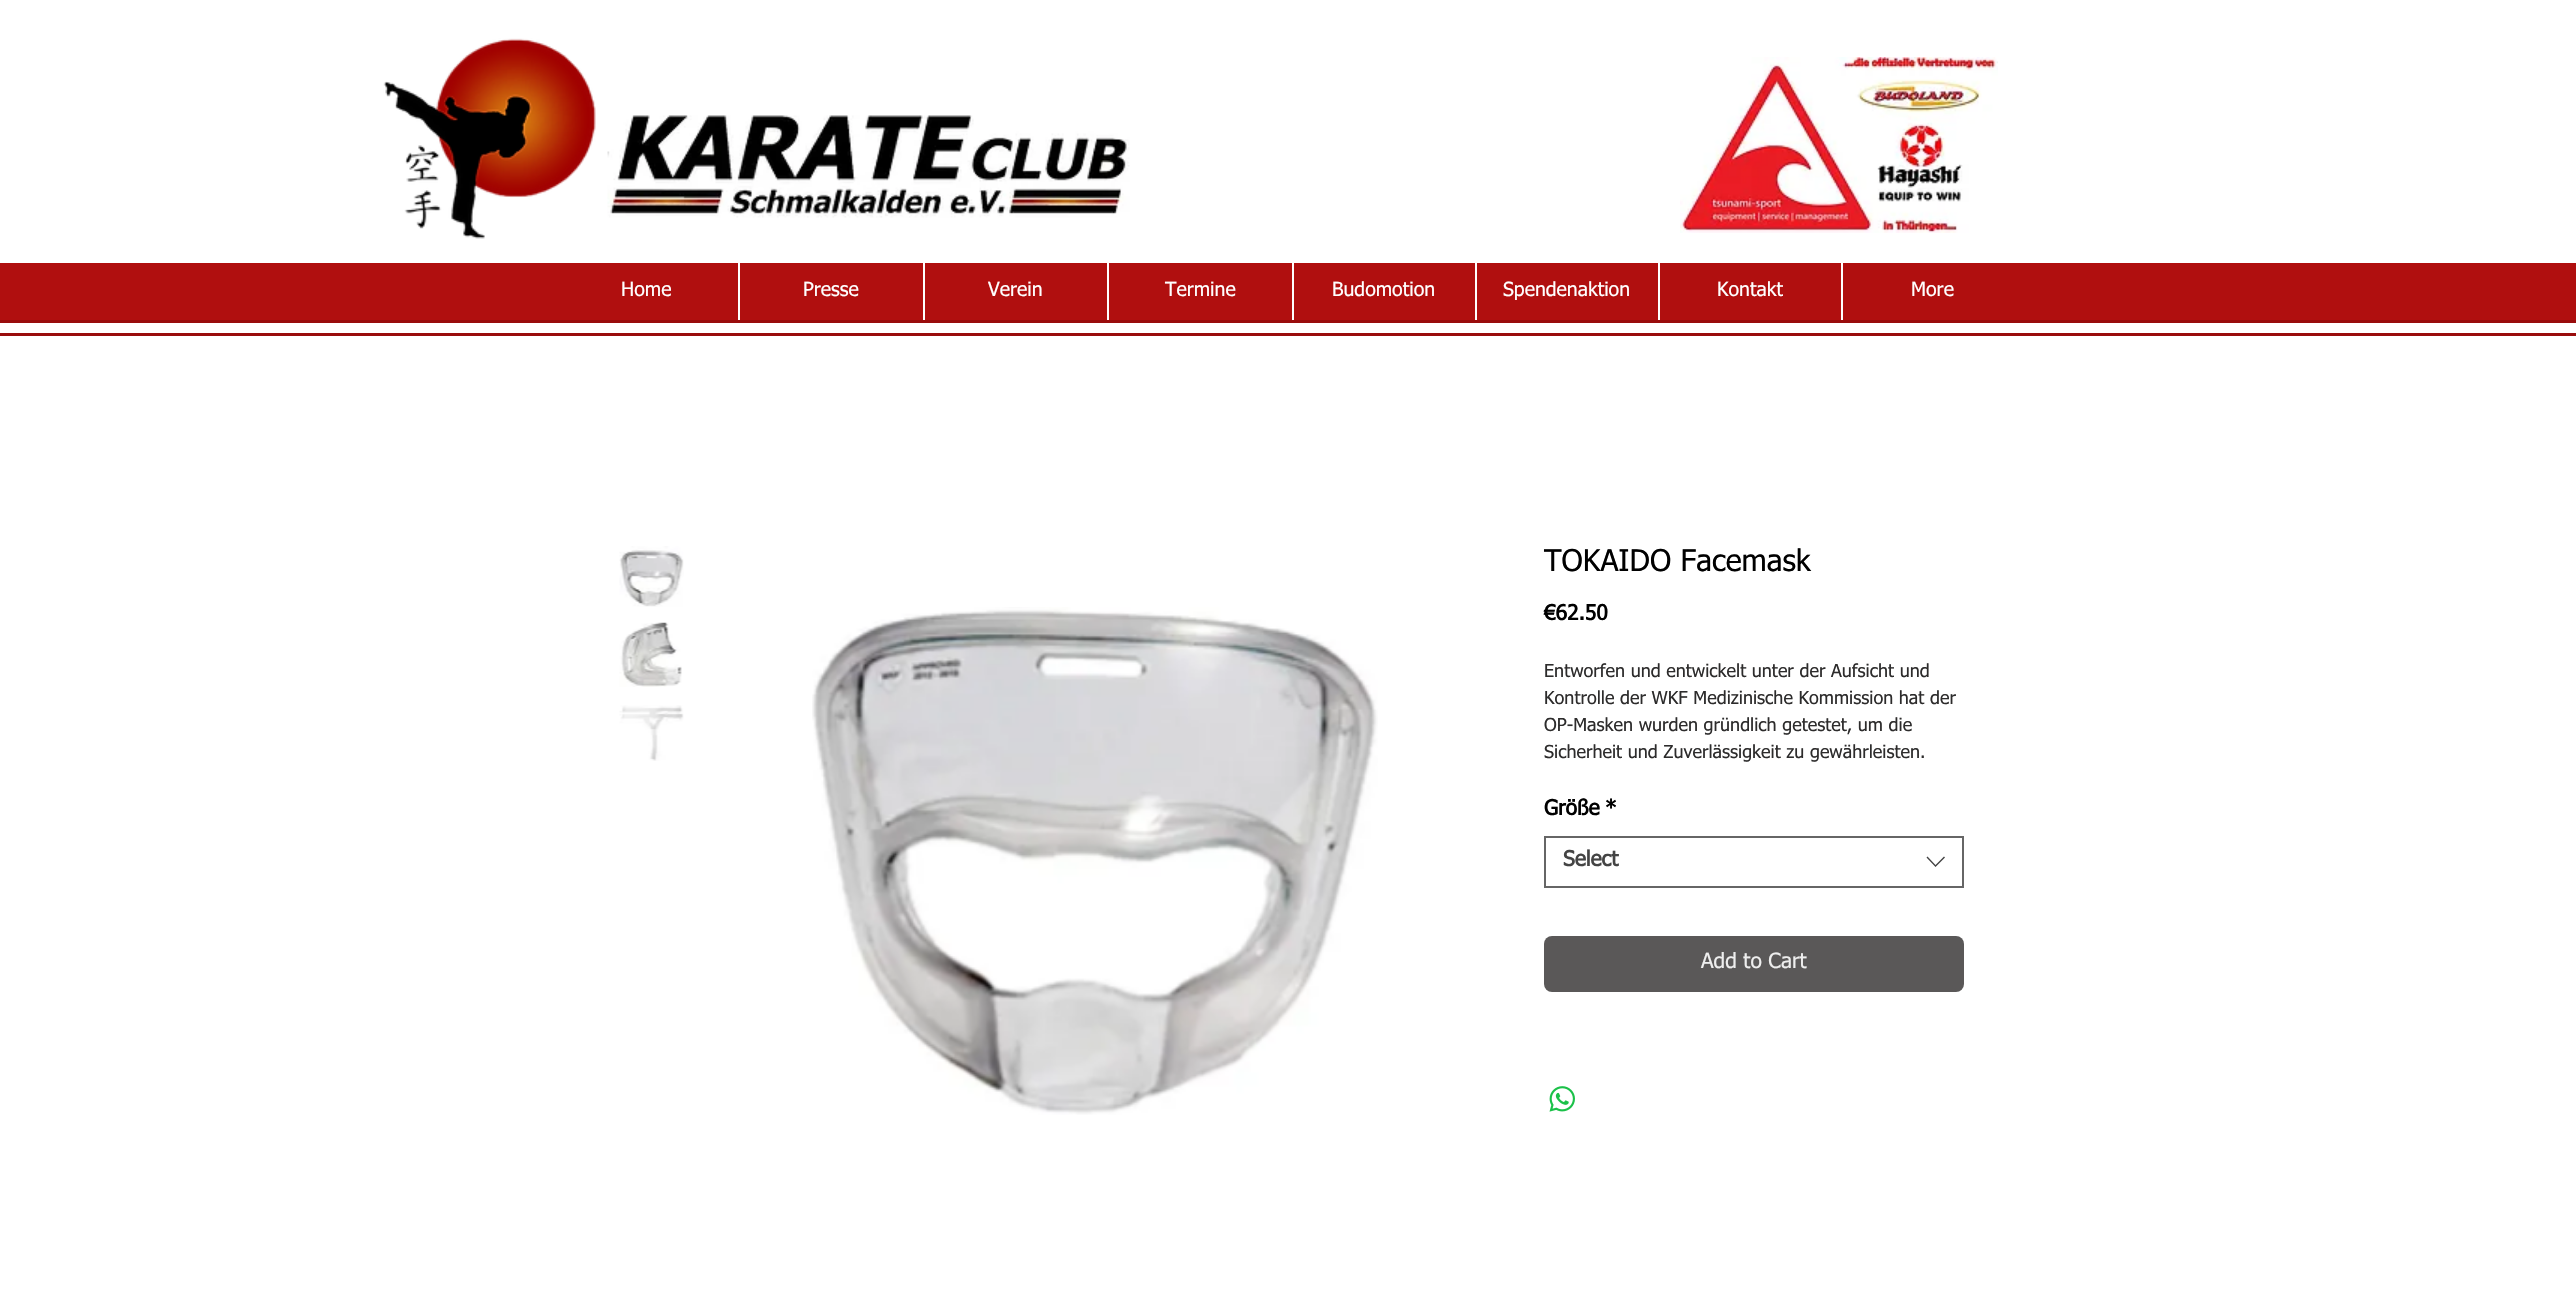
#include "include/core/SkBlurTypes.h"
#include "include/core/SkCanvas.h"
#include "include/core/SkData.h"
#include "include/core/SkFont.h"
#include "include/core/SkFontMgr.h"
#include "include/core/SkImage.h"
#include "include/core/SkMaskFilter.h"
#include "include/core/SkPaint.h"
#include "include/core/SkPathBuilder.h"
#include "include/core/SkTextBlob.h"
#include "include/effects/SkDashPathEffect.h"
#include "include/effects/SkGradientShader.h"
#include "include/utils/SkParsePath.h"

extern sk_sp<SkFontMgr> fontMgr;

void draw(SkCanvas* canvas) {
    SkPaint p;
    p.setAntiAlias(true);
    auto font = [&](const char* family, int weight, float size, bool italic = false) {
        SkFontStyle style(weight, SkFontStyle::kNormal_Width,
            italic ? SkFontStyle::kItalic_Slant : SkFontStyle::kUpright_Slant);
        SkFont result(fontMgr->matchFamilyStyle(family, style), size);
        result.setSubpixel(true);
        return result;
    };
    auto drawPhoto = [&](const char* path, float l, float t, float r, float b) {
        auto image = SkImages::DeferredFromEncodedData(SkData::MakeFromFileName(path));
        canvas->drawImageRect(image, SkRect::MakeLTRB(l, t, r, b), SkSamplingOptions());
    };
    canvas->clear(0xFFFFFFFF);
    drawPhoto("media/1.png", 383, 38, 596, 239);
    drawPhoto("media/2.png", 607, 115, 1130, 218);
    drawPhoto("media/3.png", 1680, 57, 1998, 233);
    p.setColor(0xFFB00F0F);
    canvas->drawRect(SkRect::MakeLTRB(0, 263, 2576, 320), p);
    auto font1 = font("tahoma", 400, 19.5f);
    p.setColor(0xFFFFFFFF);
    canvas->drawString("Home", 621, 296, font1, p);
    canvas->drawRect(SkRect::MakeLTRB(738, 263, 740, 320), p);
    canvas->drawString("Presse", 803, 296, font1, p);
    canvas->drawRect(SkRect::MakeLTRB(923, 263, 925, 320), p);
    canvas->drawString("Verein", 988, 296, font1, p);
    canvas->drawRect(SkRect::MakeLTRB(1107, 263, 1109, 320), p);
    canvas->drawString("Termine", 1165, 296, font1, p);
    canvas->drawRect(SkRect::MakeLTRB(1292, 263, 1294, 320), p);
    canvas->drawString("Budomotion", 1332, 296, font1, p);
    canvas->drawRect(SkRect::MakeLTRB(1475, 263, 1477, 320), p);
    canvas->drawString("Spendenaktion", 1503, 296, font1, p);
    canvas->drawRect(SkRect::MakeLTRB(1658, 263, 1660, 320), p);
    canvas->drawString("Kontakt", 1717, 296, font1, p);
    canvas->drawRect(SkRect::MakeLTRB(1841, 263, 1843, 320), p);
    canvas->drawString("More", 1911, 296, font1, p);
    p.setColor(0xFF990C0C);
    canvas->drawRect(SkRect::MakeLTRB(0, 320, 2576, 323), p);
    canvas->drawRect(SkRect::MakeLTRB(0, 333, 2576, 336), p);
    drawPhoto("media/4.png", 619, 546, 684, 607);
    drawPhoto("media/5.png", 619, 622, 682, 687);
    drawPhoto("media/6.png", 619, 705, 684, 761);
    drawPhoto("media/7.png", 812, 607, 1378, 1115);
    auto font2 = font("tahoma", 400, 30);
    p.setColor(0xFF000000);
    canvas->drawString("TOKAIDO Facemask", 1544, 571, font2, p);
    auto font3 = font("tahoma", 700, 21);
    canvas->drawString("€62.50", 1544, 620, font3, p);
    auto font4 = font("tahoma", 400, 18);
    p.setColor(0xFF2D2C2C);
    {
        const struct { const char* s; float x, y; } items[] = {
            {"Entworfen und entwickelt unter der Aufsicht und", 1544, 677},
            {"Kontrolle der WKF Medizinische Kommission hat der", 1544, 704},
            {"OP-Masken wurden gründlich getestet, um die", 1544, 731},
            {"Sicherheit und Zuverlässigkeit zu gewährleisten.", 1544, 758},
        };
        for (auto [s, x, y] : items) {
            canvas->drawString(s, x, y, font4, p);
        }
    }
    p.setColor(0xFF000000);
    canvas->drawString("Größe", 1544, 815, font3, p);
    canvas->drawString("*", 1605, 815, font3, p);
    p.setStyle(SkPaint::kStroke_Style);
    p.setStrokeWidth(2);
    p.setColor(0xFF666666);
    canvas->drawRect(SkRect::MakeLTRB(1545, 837, 1963, 887), p);
    p.setStyle(SkPaint::kFill_Style);
    p.setColor(0xFF444444);
    canvas->drawString("Select", 1563, 866, font3, p);
    canvas->drawPath(SkPathBuilder(SkPathFillType::kEvenOdd).moveTo(1944, 856.5f).lineTo(1945, 857.5f).lineTo(1935.5f, 867).lineTo(1926.5f, 857.5f).lineTo(1927.5f, 856.5f).lineTo(1935.5f, 865).close().detach(), p);
    p.setColor(0xFF5A5858);
    canvas->drawRoundRect(SkRect::MakeLTRB(1544, 936, 1964, 992), 8, 8, p);
    auto font5 = font("tahoma", 400, 21);
    p.setColor(0xFFEEEEEE);
    canvas->drawString("Add to Cart", 1701, 968, font5, p);
    drawPhoto("media/8.png", 1549, 1086, 1575, 1112);
}
